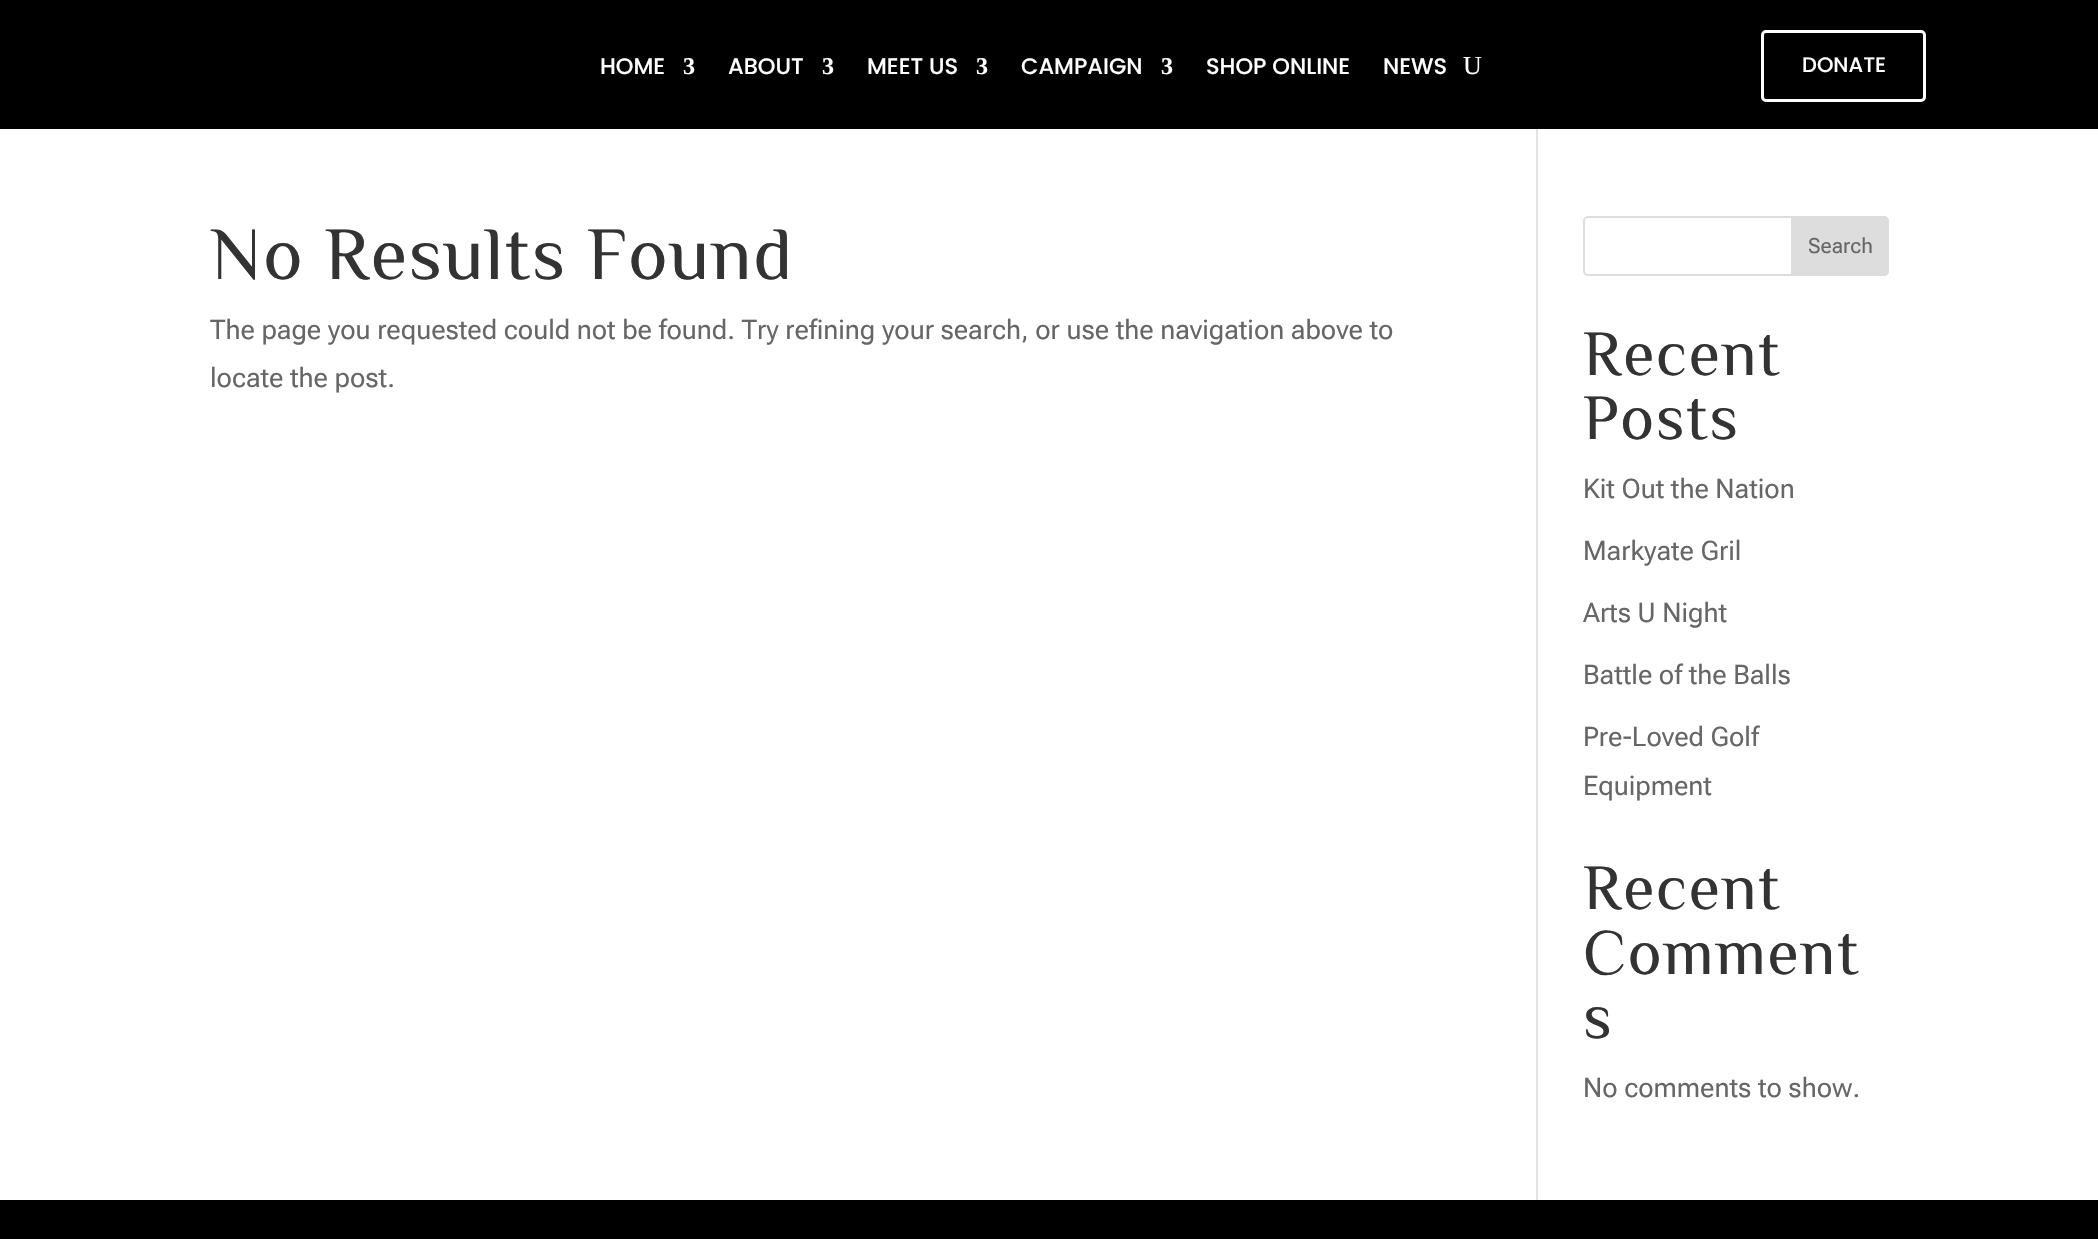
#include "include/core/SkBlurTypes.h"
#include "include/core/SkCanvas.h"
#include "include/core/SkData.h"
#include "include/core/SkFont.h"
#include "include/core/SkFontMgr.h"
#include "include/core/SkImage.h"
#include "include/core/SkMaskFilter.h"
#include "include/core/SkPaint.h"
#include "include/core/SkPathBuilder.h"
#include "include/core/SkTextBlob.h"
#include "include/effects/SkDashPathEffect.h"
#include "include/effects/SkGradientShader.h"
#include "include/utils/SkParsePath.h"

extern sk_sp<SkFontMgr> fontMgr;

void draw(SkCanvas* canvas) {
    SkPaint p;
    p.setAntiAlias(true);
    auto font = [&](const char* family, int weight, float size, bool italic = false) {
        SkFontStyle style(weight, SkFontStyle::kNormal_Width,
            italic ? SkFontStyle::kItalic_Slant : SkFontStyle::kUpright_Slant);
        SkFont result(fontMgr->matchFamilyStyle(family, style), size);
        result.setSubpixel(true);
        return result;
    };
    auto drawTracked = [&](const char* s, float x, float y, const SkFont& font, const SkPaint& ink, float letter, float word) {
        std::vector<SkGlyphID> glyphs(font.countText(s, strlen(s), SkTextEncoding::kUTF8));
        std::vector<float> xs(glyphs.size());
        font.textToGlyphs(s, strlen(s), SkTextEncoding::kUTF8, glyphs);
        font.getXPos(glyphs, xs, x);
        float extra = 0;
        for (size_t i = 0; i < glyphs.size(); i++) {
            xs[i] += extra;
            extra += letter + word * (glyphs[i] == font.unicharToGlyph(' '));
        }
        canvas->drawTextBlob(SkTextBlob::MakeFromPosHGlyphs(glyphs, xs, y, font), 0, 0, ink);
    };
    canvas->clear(0xFFFFFFFF);
    p.setColor(0xFF000000);
    canvas->drawRect(SkRect::MakeLTRB(0, 0, 2098, 129), p);
    auto font1 = font("Poppins", 500, 22.5f);
    p.setColor(0xFFFFFFFF);
    canvas->drawString("HOME", 600, 74, font1, p);
    auto font2 = font("Liberation Serif", 700, 24);
    canvas->drawString("3", 683, 74, font2, p);
    canvas->drawString("ABOUT", 728, 74, font1, p);
    canvas->drawString("3", 822, 74, font2, p);
    canvas->drawString("MEET US", 867, 74, font1, p);
    canvas->drawString("3", 976, 74, font2, p);
    canvas->drawString("CAMPAIGN", 1021, 74, font1, p);
    canvas->drawString("3", 1161, 74, font2, p);
    canvas->drawString("SHOP ONLINE", 1206, 74, font1, p);
    canvas->drawString("NEWS", 1383, 74, font1, p);
    auto font3 = font("Liberation Serif", 400, 26);
    canvas->drawString("U", 1463, 74, font3, p);
    p.setStyle(SkPaint::kStroke_Style);
    p.setStrokeWidth(3);
    canvas->drawRoundRect(SkRect::MakeLTRB(1762.5f, 31.5f, 1924.5f, 100.5f), 3.5f, 3.5f, p);
    auto font4 = font("Poppins", 500, 21);
    p.setStyle(SkPaint::kFill_Style);
    canvas->drawString("DONATE", 1802, 72, font4, p);
    p.setColor(0xFFE2E2E2);
    canvas->drawRect(SkRect::MakeLTRB(1536, 129, 1538, 1200), p);
    auto font5 = font("Philosopher", 400, 75);
    p.setColor(0xFF333333);
    drawTracked("No Results Found", 210, 279, font5, p, 1.5f, 0);
    auto font6 = font("Roboto Flex", 400, 27);
    p.setColor(0xFF666666);
    canvas->drawString("The page you requested could not be found. Try refining your search, or use the navigation above to", 210, 339, font6, p);
    canvas->drawString("locate the post.", 210, 387, font6, p);
    p.setStyle(SkPaint::kStroke_Style);
    p.setStrokeWidth(2);
    p.setColor(0xFFDDDDDD);
    canvas->drawRoundRect(SkRect::MakeLTRB(1584, 217, 1888, 275), 4, 4, p);
    p.setStyle(SkPaint::kFill_Style);
    canvas->drawPath(SkPathBuilder().moveTo(1792, 217).lineTo(1884, 217).cubicTo(1886, 217, 1888, 219, 1888, 221).lineTo(1888, 271).cubicTo(1888, 273, 1886, 275, 1884, 275).lineTo(1792, 275).close().detach(), p);
    p.setStyle(SkPaint::kStroke_Style);
    canvas->drawPath(SkPathBuilder().moveTo(1792, 217).lineTo(1884, 217).cubicTo(1886, 217, 1888, 219, 1888, 221).lineTo(1888, 271).cubicTo(1888, 273, 1886, 275, 1884, 275).lineTo(1792, 275).close().detach(), p);
    auto font7 = font("Roboto Flex", 400, 21);
    p.setStyle(SkPaint::kFill_Style);
    p.setColor(0xFF666666);
    canvas->drawString("Search", 1808, 253, font7, p);
    auto font8 = font("Philosopher", 400, 64.5f);
    p.setColor(0xFF333333);
    drawTracked("Recent", 1583, 375, font8, p, 1.5f, 0);
    drawTracked("Posts", 1583, 439, font8, p, 1.5f, 0);
    p.setColor(0xFF666666);
    {
        const struct { const char* s; float x, y; } items[] = {
            {"Kit Out the Nation", 1583, 498},
            {"Markyate Gril", 1583, 560},
            {"Arts U Night", 1583, 622},
            {"Battle of the Balls", 1583, 684},
            {"Pre-Loved Golf", 1583, 746},
            {"Equipment", 1583, 795},
        };
        for (auto [s, x, y] : items) {
            canvas->drawString(s, x, y, font6, p);
        }
    }
    p.setColor(0xFF333333);
    {
        const struct { const char* s; float x, y; } items[] = {
            {"Recent", 1583, 909},
            {"Comment", 1583, 974},
            {"s", 1583, 1038},
        };
        for (auto [s, x, y] : items) {
            drawTracked(s, x, y, font8, p, 1.5f, 0);
        }
    }
    p.setColor(0xFF666666);
    canvas->drawString("No comments to show.", 1583, 1097, font6, p);
    p.setColor(0xFF000000);
    canvas->drawRect(SkRect::MakeLTRB(0, 1200, 2098, 1239), p);
}
